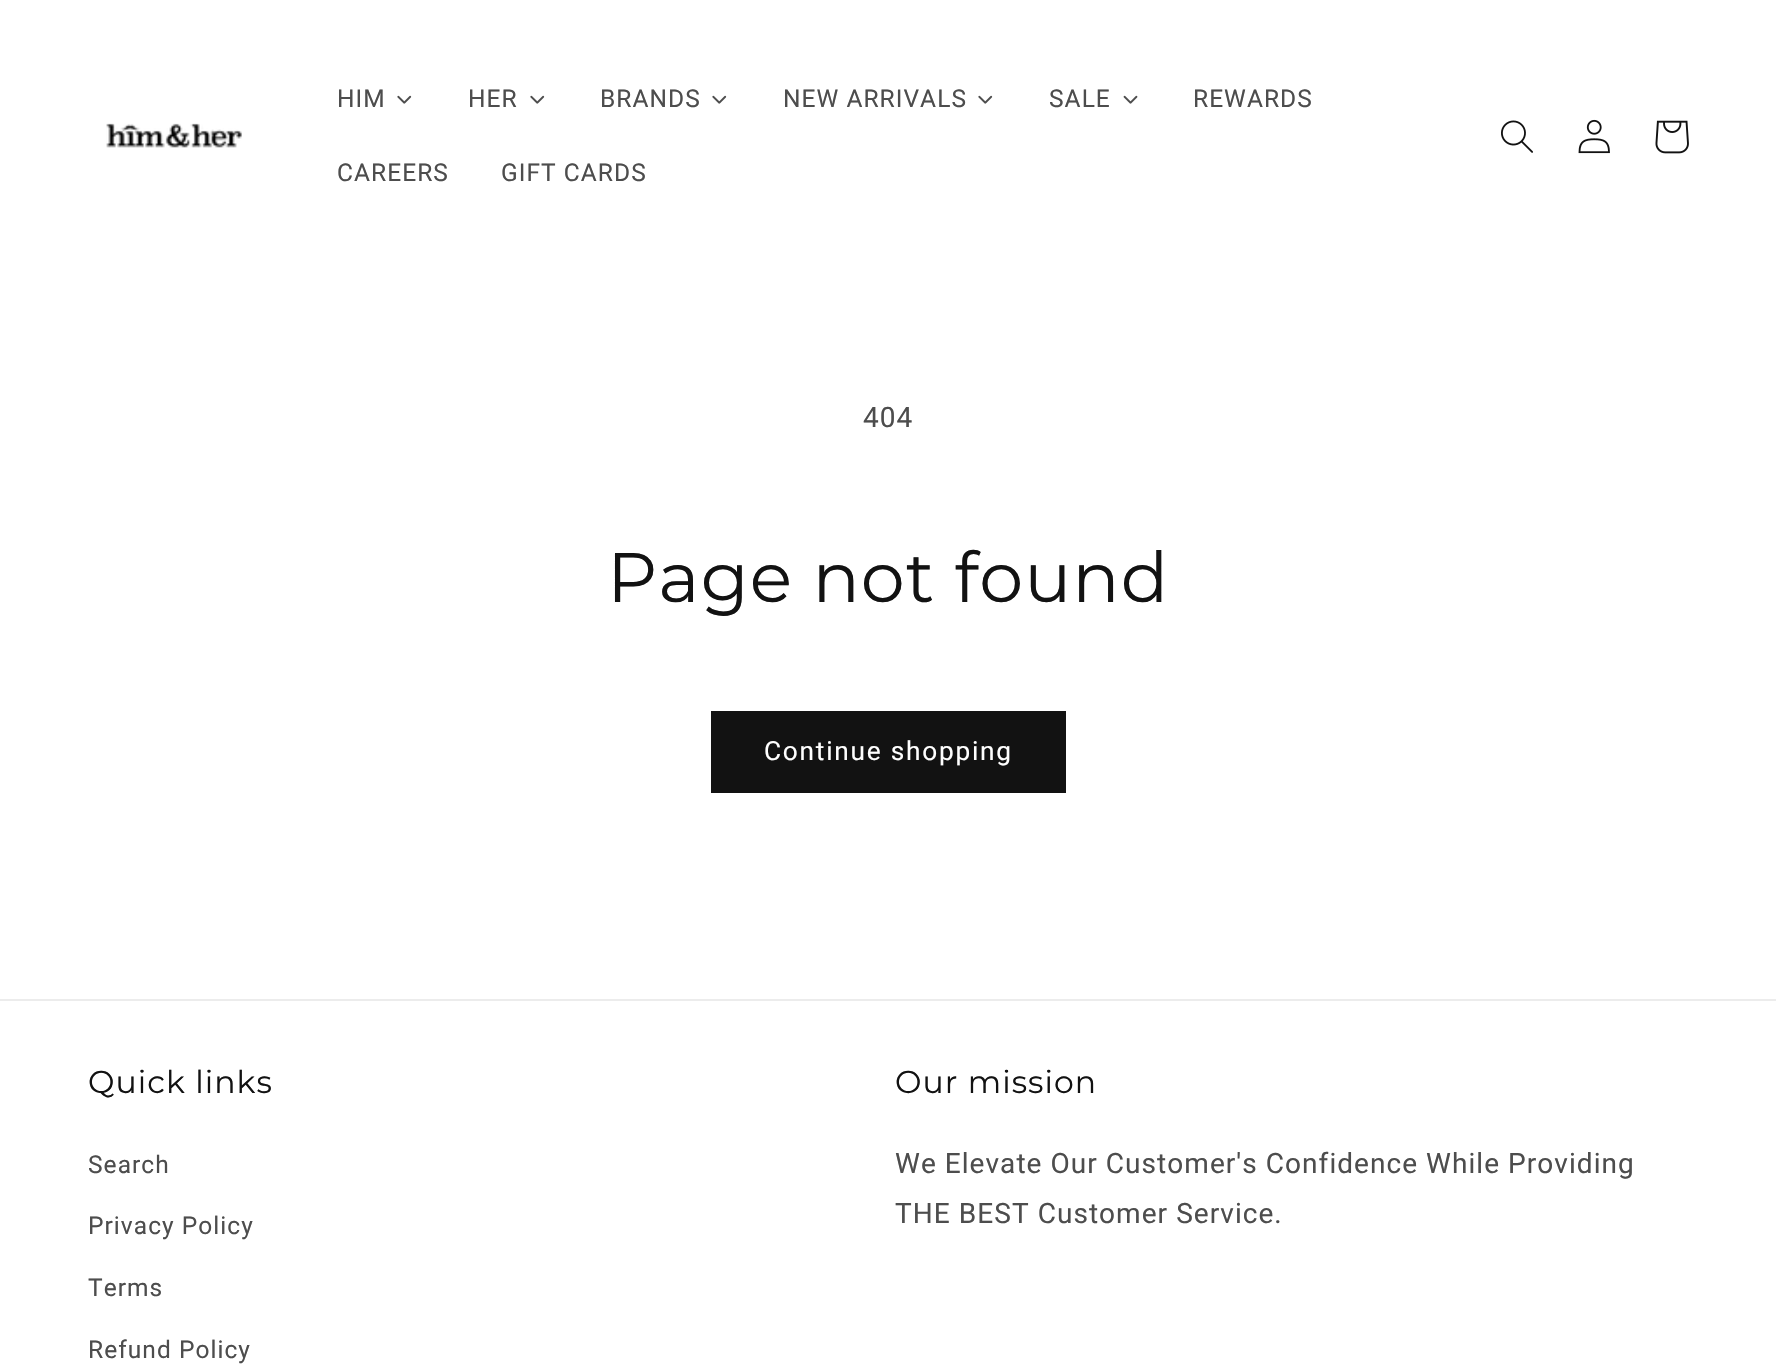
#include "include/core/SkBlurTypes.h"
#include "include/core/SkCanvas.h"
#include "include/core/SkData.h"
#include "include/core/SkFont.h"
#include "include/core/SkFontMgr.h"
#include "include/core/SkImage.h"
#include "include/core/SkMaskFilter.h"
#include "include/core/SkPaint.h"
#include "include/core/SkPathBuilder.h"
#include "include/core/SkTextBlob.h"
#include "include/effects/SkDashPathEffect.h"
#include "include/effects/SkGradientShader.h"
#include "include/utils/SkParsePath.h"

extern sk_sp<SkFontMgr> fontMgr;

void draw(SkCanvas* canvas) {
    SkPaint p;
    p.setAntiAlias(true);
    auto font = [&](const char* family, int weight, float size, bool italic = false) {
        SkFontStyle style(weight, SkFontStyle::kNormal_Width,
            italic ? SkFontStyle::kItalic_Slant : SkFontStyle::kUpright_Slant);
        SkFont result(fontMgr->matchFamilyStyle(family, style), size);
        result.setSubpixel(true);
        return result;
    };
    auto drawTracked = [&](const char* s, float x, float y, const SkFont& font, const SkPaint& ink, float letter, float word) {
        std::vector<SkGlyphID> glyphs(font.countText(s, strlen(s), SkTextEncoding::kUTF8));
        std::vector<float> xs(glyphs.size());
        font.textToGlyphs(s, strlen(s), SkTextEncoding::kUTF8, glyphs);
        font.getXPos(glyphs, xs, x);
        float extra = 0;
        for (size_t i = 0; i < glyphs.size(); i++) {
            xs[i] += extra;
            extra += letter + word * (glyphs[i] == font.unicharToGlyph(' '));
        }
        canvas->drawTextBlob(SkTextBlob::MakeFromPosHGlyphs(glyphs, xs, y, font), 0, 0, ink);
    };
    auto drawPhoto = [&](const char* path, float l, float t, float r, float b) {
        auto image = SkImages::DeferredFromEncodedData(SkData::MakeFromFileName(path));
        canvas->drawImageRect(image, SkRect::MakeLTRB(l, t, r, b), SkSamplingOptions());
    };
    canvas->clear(0xFFFFFFFF);
    drawPhoto("media/1.png", 106, 123, 242, 148);
    auto font1 = font("Roboto", 400, 24.5f);
    p.setColor(0xFF4D4D4D);
    drawTracked("HIM", 337, 107, font1, p, 1.05f, 0);
    drawPhoto("media/2.png", 397, 95, 412, 104);
    drawTracked("HER", 468, 107, font1, p, 1.05f, 0);
    drawPhoto("media/2.png", 530, 95, 545, 104);
    drawTracked("BRANDS", 600, 107, font1, p, 1.05f, 0);
    drawPhoto("media/2.png", 712, 95, 727, 104);
    drawTracked("NEW ARRIVALS", 783, 107, font1, p, 1.05f, 0);
    drawPhoto("media/2.png", 978, 95, 993, 104);
    drawTracked("SALE", 1049, 107, font1, p, 1.05f, 0);
    drawPhoto("media/3.png", 1123, 95, 1138, 104);
    {
        const struct { const char* s; float x, y; } items[] = {
            {"REWARDS", 1193, 107},
            {"CAREERS", 337, 181},
            {"GIFT CARDS", 501, 181},
        };
        for (auto [s, x, y] : items) {
            drawTracked(s, x, y, font1, p, 1.05f, 0);
        }
    }
    drawPhoto("media/4.png", 1501, 120, 1533, 153);
    drawPhoto("media/5.png", 1578, 119, 1610, 154);
    drawPhoto("media/6.png", 1655, 120, 1689, 154);
    auto font2 = font("Roboto", 400, 28);
    drawTracked("404", 863, 427, font2, p, 1.05f, 0);
    auto font3 = font("Montserrat", 400, 70);
    p.setColor(0xFF121212);
    drawTracked("Page not found", 607, 602, font3, p, 1.05f, 0);
    canvas->drawRect(SkRect::MakeLTRB(711, 711, 1066, 793), p);
    auto font4 = font("Roboto", 400, 26.25f);
    p.setColor(0xFFFFFFFF);
    drawTracked("Continue shopping", 764, 760, font4, p, 1.75f, 0);
    p.setColor(0xFFECECEC);
    canvas->drawRect(SkRect::MakeLTRB(0, 999, 1776, 1001), p);
    auto font5 = font("Montserrat", 400, 31.5f);
    p.setColor(0xFF121212);
    drawTracked("Quick links", 88, 1093, font5, p, 1.05f, 0);
    p.setColor(0xFF4D4D4D);
    {
        const struct { const char* s; float x, y; } items[] = {
            {"Search", 88, 1173},
            {"Privacy Policy", 88, 1234},
            {"Terms", 88, 1296},
            {"Refund Policy", 88, 1358},
        };
        for (auto [s, x, y] : items) {
            drawTracked(s, x, y, font1, p, 1.05f, 0);
        }
    }
    p.setColor(0xFF121212);
    drawTracked("Our mission", 895, 1093, font5, p, 1.05f, 0);
    p.setColor(0xFF4D4D4D);
    drawTracked("We Elevate Our Customer's Confidence While Providing", 895, 1173, font2, p, 1.05f, 0);
    drawTracked("THE BEST Customer Service.", 895, 1223, font2, p, 1.05f, 0);
}
